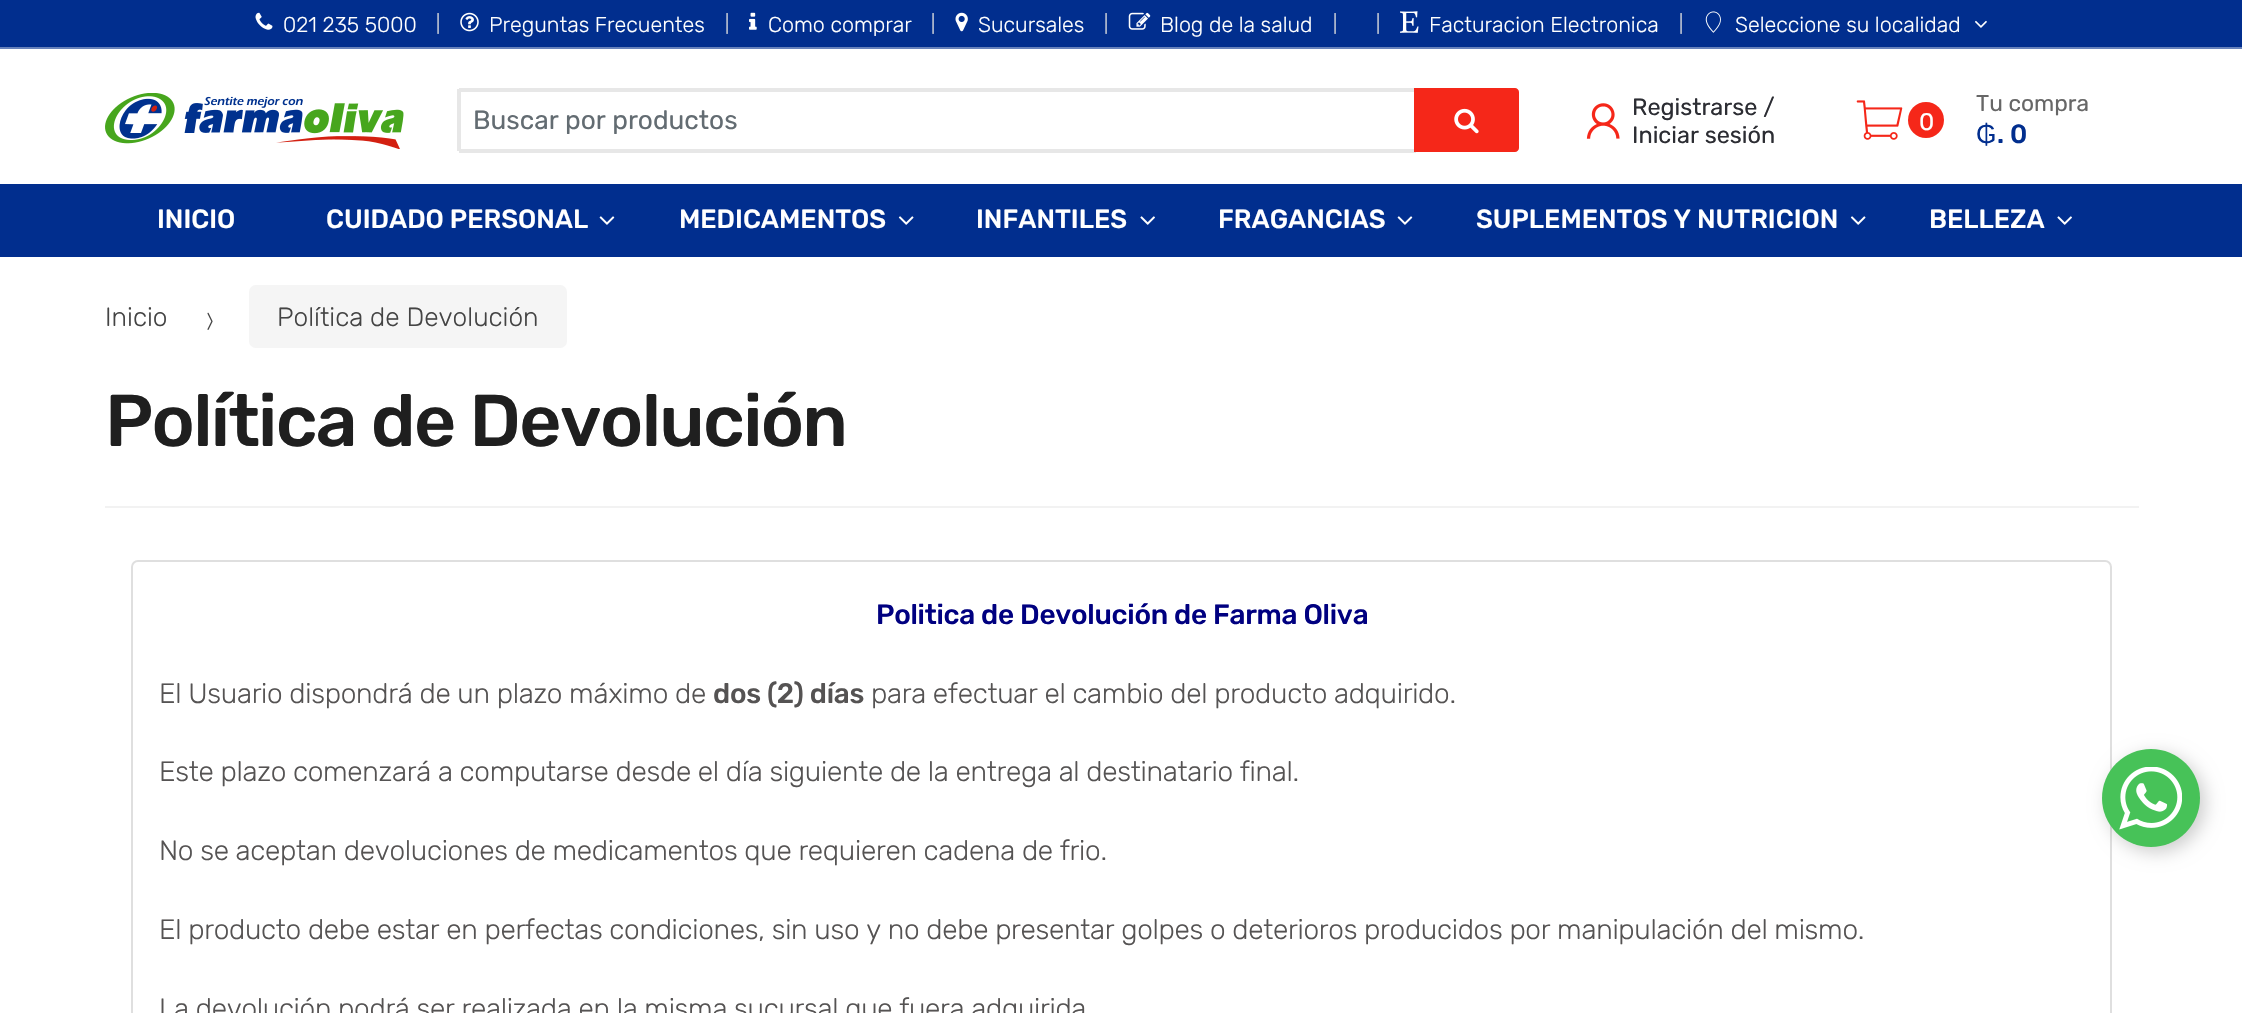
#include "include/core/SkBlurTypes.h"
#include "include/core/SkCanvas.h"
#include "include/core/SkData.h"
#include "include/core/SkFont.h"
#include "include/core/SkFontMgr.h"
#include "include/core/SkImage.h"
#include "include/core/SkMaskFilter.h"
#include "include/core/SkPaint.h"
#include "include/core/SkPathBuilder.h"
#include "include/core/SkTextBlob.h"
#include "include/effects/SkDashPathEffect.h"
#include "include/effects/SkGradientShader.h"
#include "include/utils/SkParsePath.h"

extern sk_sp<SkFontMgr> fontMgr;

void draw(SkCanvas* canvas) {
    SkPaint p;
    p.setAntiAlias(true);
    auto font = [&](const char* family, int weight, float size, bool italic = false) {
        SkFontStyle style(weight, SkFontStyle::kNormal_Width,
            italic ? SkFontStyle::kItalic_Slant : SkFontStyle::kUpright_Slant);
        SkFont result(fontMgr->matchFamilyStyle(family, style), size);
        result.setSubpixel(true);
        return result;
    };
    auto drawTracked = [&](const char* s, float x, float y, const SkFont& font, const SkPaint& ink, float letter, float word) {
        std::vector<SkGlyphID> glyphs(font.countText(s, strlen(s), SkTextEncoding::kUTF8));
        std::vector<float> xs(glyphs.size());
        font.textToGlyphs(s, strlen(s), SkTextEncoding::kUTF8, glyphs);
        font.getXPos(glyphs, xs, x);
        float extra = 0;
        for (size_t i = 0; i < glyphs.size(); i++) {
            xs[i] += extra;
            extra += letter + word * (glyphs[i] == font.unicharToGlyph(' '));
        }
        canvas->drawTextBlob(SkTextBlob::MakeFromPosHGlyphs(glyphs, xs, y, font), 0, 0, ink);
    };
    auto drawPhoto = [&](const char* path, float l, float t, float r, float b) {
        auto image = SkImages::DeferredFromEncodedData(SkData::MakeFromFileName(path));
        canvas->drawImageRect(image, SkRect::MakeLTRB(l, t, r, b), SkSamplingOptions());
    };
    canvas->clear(0xFFFFFFFF);
    p.setColor(0xFF012E8E);
    canvas->drawRect(SkRect::MakeLTRB(0, 0, 2242, 47), p);
    p.setColor(0xFF6782BB);
    canvas->drawRect(SkRect::MakeLTRB(0, 47, 2242, 49), p);
    drawPhoto("media/1.png", 255, 12, 273, 30);
    auto font1 = font("Rubik", 300, 21.5f);
    p.setColor(0xFFFFFFFF);
    canvas->drawString("021 235 5000", 283, 32, font1, p);
    auto font2 = font("Rubik", 300, 19);
    p.setColor(0xFFDEDEDE);
    canvas->drawString("|", 436, 30, font2, p);
    drawPhoto("media/2.png", 460, 12, 479, 32);
    p.setColor(0xFFFFFFFF);
    canvas->drawString("Preguntas Frecuentes", 489, 32, font1, p);
    p.setColor(0xFFDEDEDE);
    canvas->drawString("|", 725, 30, font2, p);
    drawPhoto("media/3.png", 749, 12, 757, 30);
    p.setColor(0xFFFFFFFF);
    canvas->drawString("Como comprar", 768, 32, font1, p);
    p.setColor(0xFFDEDEDE);
    canvas->drawString("|", 931, 30, font2, p);
    drawPhoto("media/4.png", 955, 12, 968, 32);
    p.setColor(0xFFFFFFFF);
    canvas->drawString("Sucursales", 978, 32, font1, p);
    p.setColor(0xFFDEDEDE);
    canvas->drawString("|", 1104, 30, font2, p);
    drawPhoto("media/5.png", 1128, 12, 1151, 30);
    p.setColor(0xFFFFFFFF);
    canvas->drawString("Blog de la salud", 1160, 32, font1, p);
    p.setColor(0xFFDEDEDE);
    canvas->drawString("|", 1333, 30, font2, p);
    canvas->drawString("|", 1376, 30, font2, p);
    drawPhoto("media/6.png", 1400, 11, 1419, 33);
    p.setColor(0xFFFFFFFF);
    canvas->drawString("Facturacion Electronica", 1429, 32, font1, p);
    p.setColor(0xFFDEDEDE);
    canvas->drawString("|", 1679, 30, font2, p);
    drawPhoto("media/7.png", 1705, 11, 1721, 33);
    p.setColor(0xFFFFFFFF);
    canvas->drawString("Seleccione su localidad", 1735, 32, font1, p);
    drawPhoto("media/8.png", 1975, 20, 1987, 28);
    drawPhoto("media/9.png", 105, 93, 404, 149);
    {
        const struct { float l, t, r, b; SkColor color; } items[] = {
            {459, 88, 1416, 92, 0xFFE7E7E7},
            {459, 149, 1416, 153, 0xFFE7E7E7},
            {457, 89, 461, 151, 0xFFE7E7E7},
        };
        for (auto [l, t, r, b, color] : items) {
            p.setColor(color);
            canvas->drawRect(SkRect::MakeLTRB(l, t, r, b), p);
        }
    }
    auto font3 = font("Rubik", 400, 26.25f);
    p.setColor(0xFF636C72);
    canvas->drawString("Buscar por productos", 473, 129, font3, p);
    p.setColor(0xFFF52719);
    canvas->drawPath(SkPathBuilder().moveTo(1415, 89).lineTo(1515, 89).cubicTo(1516.5f, 89, 1518, 90.5f, 1518, 92).lineTo(1518, 148).cubicTo(1518, 149.5f, 1516.5f, 151, 1515, 151).lineTo(1415, 151).close().detach(), p);
    p.setStyle(SkPaint::kStroke_Style);
    p.setStrokeWidth(2);
    canvas->drawPath(SkPathBuilder().moveTo(1415, 89).lineTo(1515, 89).cubicTo(1516.5f, 89, 1518, 90.5f, 1518, 92).lineTo(1518, 148).cubicTo(1518, 149.5f, 1516.5f, 151, 1515, 151).lineTo(1415, 151).close().detach(), p);
    drawPhoto("media/10.png", 1454, 108, 1479, 134);
    drawPhoto("media/11.png", 1586, 103, 1620, 139);
    auto font4 = font("Rubik", 400, 23.5f);
    p.setStyle(SkPaint::kFill_Style);
    p.setColor(0xFF2C2D33);
    canvas->drawString("Registrarse /", 1632, 115, font4, p);
    canvas->drawString("Iniciar sesión", 1632, 143, font4, p);
    drawPhoto("media/12.png", 1856, 100, 1903, 140);
    p.setColor(0xFFF52719);
    canvas->drawCircle(1926, 120, 18, p);
    auto font5 = font("Rubik", 400, 24);
    p.setColor(0xFFFFFFFF);
    drawTracked("0", 1919, 130, font5, p, -1.75f, 0);
    auto font6 = font("Rubik", 400, 22.75f);
    p.setColor(0xFF676767);
    canvas->drawString("Tu compra", 1976, 111, font6, p);
    auto font7 = font("Liberation Sans", 400, 26.25f);
    p.setColor(0xFF012E8E);
    canvas->drawString("₲", 1976, 143, font7, p);
    auto font8 = font("Rubik", 500, 26.25f);
    canvas->drawString(". 0", 1997, 143, font8, p);
    canvas->drawRect(SkRect::MakeLTRB(0, 184, 2242, 257), p);
    p.setColor(0xFFFFFFFF);
    canvas->drawString("INICIO", 157, 228, font8, p);
    canvas->drawString("CUIDADO PERSONAL", 326, 228, font8, p);
    drawPhoto("media/13.png", 599, 216, 615, 225);
    canvas->drawString("MEDICAMENTOS", 679, 228, font8, p);
    drawPhoto("media/14.png", 898, 216, 914, 225);
    canvas->drawString("INFANTILES", 976, 228, font8, p);
    drawPhoto("media/15.png", 1140, 216, 1155, 225);
    canvas->drawString("FRAGANCIAS", 1218, 228, font8, p);
    drawPhoto("media/13.png", 1397, 216, 1413, 225);
    canvas->drawString("SUPLEMENTOS Y NUTRICION", 1476, 228, font8, p);
    drawPhoto("media/14.png", 1850, 216, 1866, 225);
    canvas->drawString("BELLEZA", 1929, 228, font8, p);
    drawPhoto("media/15.png", 2057, 216, 2072, 225);
    auto font9 = font("Rubik", 300, 26.25f);
    p.setColor(0xFF444444);
    canvas->drawString("Inicio", 105, 326, font9, p);
    drawPhoto("media/16.png", 207, 312, 213, 330);
    p.setColor(0xFFF5F5F5);
    canvas->drawRoundRect(SkRect::MakeLTRB(249, 285, 567, 348), 7, 7, p);
    p.setColor(0xFF444444);
    canvas->drawString("Política de Devolución", 277, 326, font9, p);
    p.setColor(0xFFF2F2F2);
    canvas->drawRect(SkRect::MakeLTRB(105, 506, 2139, 508), p);
    auto font10 = font("Rubik", 500, 73.25f);
    p.setColor(0xFF1F1F1F);
    drawTracked("Política de Devolución", 105, 446, font10, p, -1.75f, 0);
    p.setStyle(SkPaint::kStroke_Style);
    p.setColor(0xFFDFDFDF);
    canvas->drawRoundRect(SkRect::MakeLTRB(132, 561, 2111, 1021), 6, 6, p);
    auto font11 = font("Rubik", 500, 28);
    p.setStyle(SkPaint::kFill_Style);
    p.setColor(0xFF000080);
    drawTracked("Politica de Devolución de Farma Oliva", 876, 624, font11, p, -0.28f, 0);
    auto font12 = font("Rubik", 300, 28);
    p.setColor(0xFF555353);
    drawTracked("El Usuario dispondrá de un plazo máximo de", 159, 703, font12, p, -0.28f, 0);
    drawTracked("dos (2) días", 713, 703, font11, p, -0.28f, 0);
    {
        const struct { const char* s; float x, y; } items[] = {
            {"para efectuar el cambio del producto adquirido.", 871, 703},
            {"Este plazo comenzará a computarse desde el día siguiente de la entrega al destinatario final.", 159, 781},
            {"No se aceptan devoluciones de medicamentos que requieren cadena de frio.", 159, 860},
            {"El producto debe estar en perfectas condiciones, sin uso y no debe presentar golpes o deterioros producidos por manipulación del mismo.", 159, 939},
            {"La devolución podrá ser realizada en la misma sucursal que fuera adquirida", 159, 1018},
        };
        for (auto [s, x, y] : items) {
            drawTracked(s, x, y, font12, p, -0.28f, 0);
        }
    }
    p.setColor(0x33000000);
    p.setMaskFilter(SkMaskFilter::MakeBlur(kNormal_SkBlurStyle, 9));
    canvas->drawRoundRect(SkRect::MakeLTRB(2107, 754, 2205, 852), 49, 49, p);
    p.setMaskFilter(nullptr);
    p.setColor(0xFF47C258);
    canvas->drawCircle(2151, 798, 49, p);
    drawPhoto("media/17.png", 2119, 767, 2182, 830);
}
